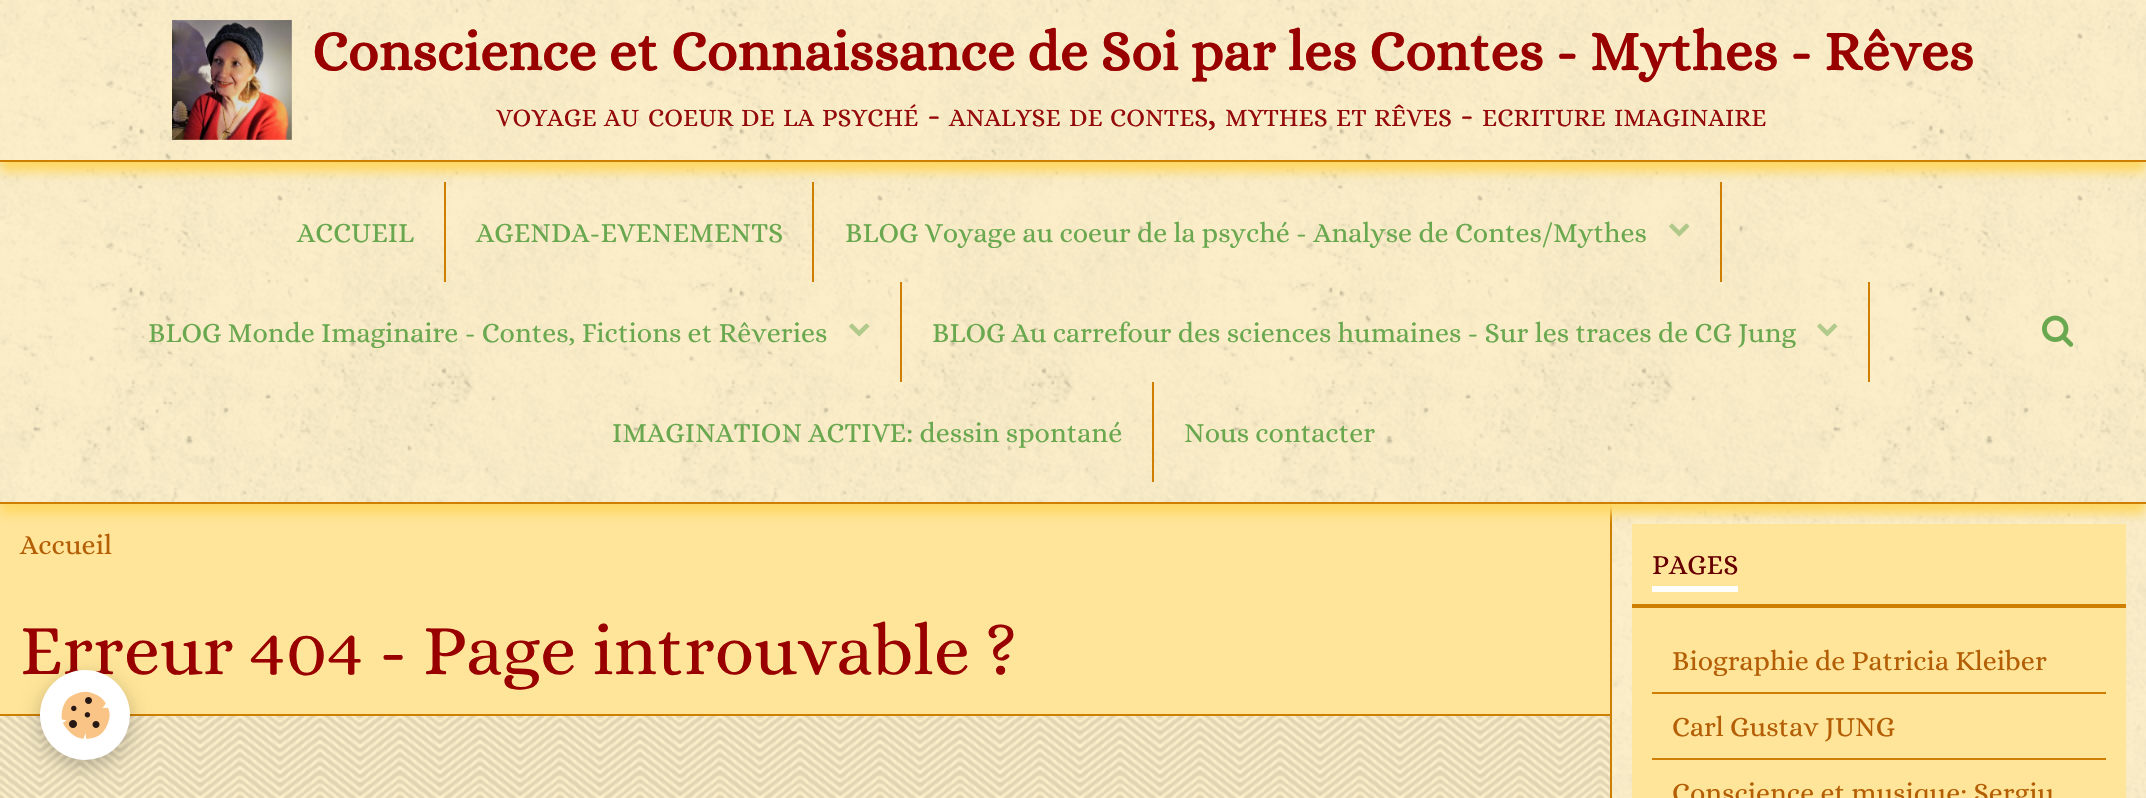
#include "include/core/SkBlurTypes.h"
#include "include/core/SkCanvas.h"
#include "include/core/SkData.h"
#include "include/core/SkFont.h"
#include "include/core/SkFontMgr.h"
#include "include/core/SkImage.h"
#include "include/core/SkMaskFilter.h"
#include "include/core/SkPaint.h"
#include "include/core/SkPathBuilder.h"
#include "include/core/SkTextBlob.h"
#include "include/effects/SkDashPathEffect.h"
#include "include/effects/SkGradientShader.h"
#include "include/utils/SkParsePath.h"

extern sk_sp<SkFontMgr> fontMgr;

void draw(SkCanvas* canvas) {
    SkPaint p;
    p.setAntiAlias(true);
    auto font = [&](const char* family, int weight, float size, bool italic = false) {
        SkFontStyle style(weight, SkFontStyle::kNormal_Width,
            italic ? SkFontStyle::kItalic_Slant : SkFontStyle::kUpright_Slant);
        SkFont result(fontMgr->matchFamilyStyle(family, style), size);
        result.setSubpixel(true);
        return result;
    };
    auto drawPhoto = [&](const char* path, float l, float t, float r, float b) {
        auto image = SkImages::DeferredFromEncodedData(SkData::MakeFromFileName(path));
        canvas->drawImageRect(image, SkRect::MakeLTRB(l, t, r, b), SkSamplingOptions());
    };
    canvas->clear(0xFFFFF2CC);
    drawPhoto("media/1.png", 0, 716, 1610, 798);
    p.setColor(0xFFFFE599);
    canvas->drawRect(SkRect::MakeLTRB(0, 504, 1610, 714), p);
    drawPhoto("media/9.png", 1612, 504, 2146, 798);
    p.setColor(0xFFCE7E00);
    canvas->drawRect(SkRect::MakeLTRB(1610, 504, 1612, 798), p);
    p.setColor(0xFFFFE599);
    canvas->drawRect(SkRect::MakeLTRB(1632, 524, 2126, 604), p);
    p.setColor(0xFFFFD966);
    p.setMaskFilter(SkMaskFilter::MakeBlur(kNormal_SkBlurStyle, 5));
    canvas->drawRect(SkRect::MakeLTRB(0, 172, 2146, 514), p);
    p.setMaskFilter(nullptr);
    p.setColor(0xFFFFF2CC);
    canvas->drawRect(SkRect::MakeLTRB(0, 162, 2146, 502), p);
    drawPhoto("media/4.png", 0, 162, 2146, 502);
    {
        const struct { float l, t, r, b; SkColor color; } items[] = {
            {444, 182, 446, 282, 0xFFCE7E00},
            {812, 182, 814, 282, 0xFFCE7E00},
            {1720, 182, 1722, 282, 0xFFCE7E00},
        };
        for (auto [l, t, r, b, color] : items) {
            p.setColor(color);
            canvas->drawRect(SkRect::MakeLTRB(l, t, r, b), p);
        }
    }
    p.setColor(0xFFFFD966);
    p.setMaskFilter(SkMaskFilter::MakeBlur(kNormal_SkBlurStyle, 5));
    canvas->drawRect(SkRect::MakeLTRB(0, 10, 2146, 172), p);
    p.setMaskFilter(nullptr);
    p.setColor(0xFFFFF2CC);
    canvas->drawRect(SkRect::MakeLTRB(0, 0, 2146, 160), p);
    drawPhoto("media/2.png", 0, 0, 2146, 160);
    p.setColor(0xFFCE7E00);
    canvas->drawRect(SkRect::MakeLTRB(0, 160, 2146, 162), p);
    drawPhoto("media/3.png", 172, 20, 292, 140);
    auto font1 = font("Alice", 700, 56);
    p.setColor(0xFF990000);
    canvas->drawString("Conscience et Connaissance de Soi par les Contes - Mythes - Rêves", 312, 70, font1, p);
    auto font2 = font("Alice", 400, 25.5f);
    p.setColor(0xFF950A0A);
    {
        const struct { const char* s; float x, y; } items[] = {
            {"VOYAGE", 496, 126},
            {"AU", 604, 126},
            {"COEUR", 648, 126},
            {"DE", 741, 126},
            {"LA", 783, 126},
            {"PSYCHÉ", 822, 126},
        };
        for (auto [s, x, y] : items) {
            canvas->drawString(s, x, y, font2, p);
        }
    }
    auto font3 = font("Alice", 400, 36);
    canvas->drawString("-", 927, 126, font3, p);
    {
        const struct { const char* s; float x, y; } items[] = {
            {"ANALYSE", 949, 126},
            {"DE", 1069, 126},
            {"CONTES", 1110, 126},
            {"MYTHES", 1225, 126},
            {"ET", 1336, 126},
            {"RÊVES", 1374, 126},
        };
        for (auto [s, x, y] : items) {
            canvas->drawString(s, x, y, font2, p);
        }
    }
    canvas->drawString("-", 1460, 126, font3, p);
    canvas->drawString("ECRITURE", 1482, 126, font2, p);
    canvas->drawString("IMAGINAIRE", 1614, 126, font2, p);
    canvas->drawString(",", 1208, 126, font3, p);
    p.setColor(0xFFCE7E00);
    canvas->drawRect(SkRect::MakeLTRB(0, 502, 2146, 504), p);
    auto font4 = font("Alice", 400, 28);
    p.setColor(0xFF6AA84F);
    {
        const struct { const char* s; float x, y; } items[] = {
            {"ACCUEIL", 297, 242},
            {"AGENDA-EVENEMENTS", 476, 242},
            {"BLOG Voyage au coeur de la psyché - Analyse de Contes/Mythes", 845, 242},
        };
        for (auto [s, x, y] : items) {
            canvas->drawString(s, x, y, font4, p);
        }
    }
    drawPhoto("media/5.png", 1669, 223, 1690, 237);
    p.setColor(0xFFCE7E00);
    canvas->drawRect(SkRect::MakeLTRB(900, 282, 902, 382), p);
    p.setColor(0xFF6AA84F);
    canvas->drawString("BLOG Monde Imaginaire - Contes, Fictions et Rêveries", 148, 342, font4, p);
    drawPhoto("media/6.png", 849, 323, 870, 337);
    p.setColor(0xFFCE7E00);
    canvas->drawRect(SkRect::MakeLTRB(1868, 282, 1870, 382), p);
    p.setColor(0xFF6AA84F);
    canvas->drawString("BLOG Au carrefour des sciences humaines - Sur les traces de CG Jung", 932, 342, font4, p);
    drawPhoto("media/7.png", 1817, 323, 1838, 337);
    p.setColor(0xFFCE7E00);
    canvas->drawRect(SkRect::MakeLTRB(1152, 382, 1154, 482), p);
    p.setColor(0xFF6AA84F);
    canvas->drawString("IMAGINATION ACTIVE: dessin spontané", 612, 442, font4, p);
    canvas->drawString("Nous contacter", 1184, 442, font4, p);
    drawPhoto("media/8.png", 2042, 315, 2074, 347);
    p.setColor(0xFFB45F06);
    canvas->drawString("Accueil", 20, 554, font4, p);
    p.setColor(0xFFCE7E00);
    canvas->drawRect(SkRect::MakeLTRB(0, 714, 1610, 716), p);
    auto font5 = font("Alice", 400, 72);
    p.setColor(0xFF990000);
    canvas->drawString("Erreur 404 - Page introuvable ?", 20, 674, font5, p);
    p.setColor(0xFFFFE599);
    canvas->drawRect(SkRect::MakeLTRB(1632, 608, 2126, 798), p);
    p.setColor(0xFFCE7E00);
    canvas->drawRect(SkRect::MakeLTRB(1632, 604, 2126, 608), p);
    p.setColor(0xFF660000);
    canvas->drawString("PAGES", 1652, 574, font4, p);
    p.setColor(0xFFFFFFFF);
    canvas->drawRect(SkRect::MakeLTRB(1652, 586, 1738, 592), p);
    p.setColor(0xFFCE7E00);
    canvas->drawRect(SkRect::MakeLTRB(1652, 692, 2106, 694), p);
    p.setColor(0xFFB45F06);
    canvas->drawString("Biographie de Patricia Kleiber", 1672, 670, font4, p);
    p.setColor(0xFFCE7E00);
    canvas->drawRect(SkRect::MakeLTRB(1652, 758, 2106, 760), p);
    p.setColor(0xFFB45F06);
    canvas->drawString("Carl Gustav JUNG", 1672, 736, font4, p);
    canvas->drawString("Conscience et musique: Sergiu", 1672, 802, font4, p);
    p.setColor(0x3D000000);
    p.setMaskFilter(SkMaskFilter::MakeBlur(kNormal_SkBlurStyle, 10));
    canvas->drawRoundRect(SkRect::MakeLTRB(40, 676, 130, 766), 45, 45, p);
    p.setMaskFilter(nullptr);
    p.setColor(0xFFFFFFFF);
    canvas->drawCircle(85, 715, 45, p);
    drawPhoto("media/10.png", 61, 691, 110, 739);
}
